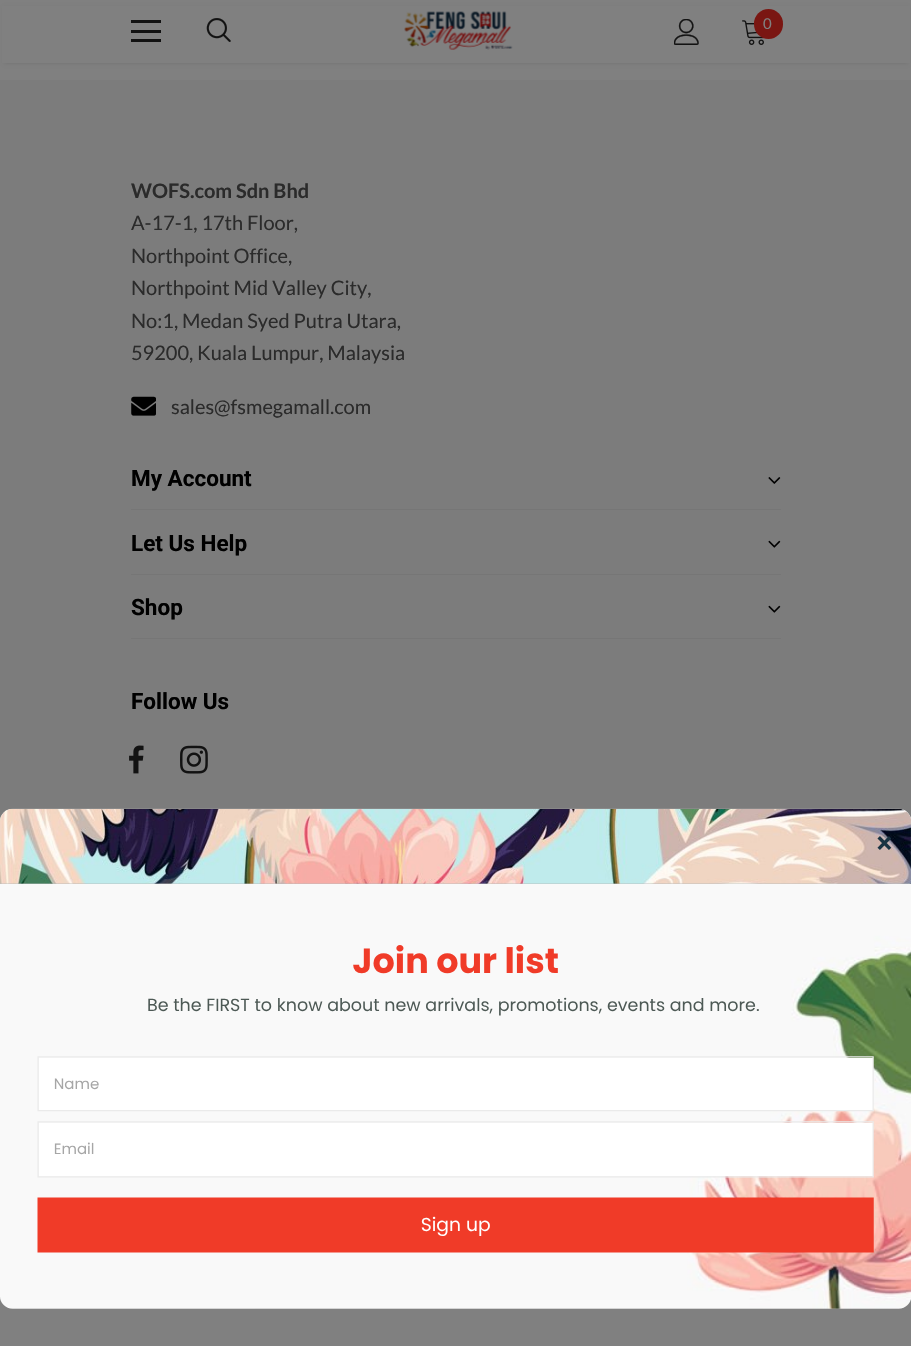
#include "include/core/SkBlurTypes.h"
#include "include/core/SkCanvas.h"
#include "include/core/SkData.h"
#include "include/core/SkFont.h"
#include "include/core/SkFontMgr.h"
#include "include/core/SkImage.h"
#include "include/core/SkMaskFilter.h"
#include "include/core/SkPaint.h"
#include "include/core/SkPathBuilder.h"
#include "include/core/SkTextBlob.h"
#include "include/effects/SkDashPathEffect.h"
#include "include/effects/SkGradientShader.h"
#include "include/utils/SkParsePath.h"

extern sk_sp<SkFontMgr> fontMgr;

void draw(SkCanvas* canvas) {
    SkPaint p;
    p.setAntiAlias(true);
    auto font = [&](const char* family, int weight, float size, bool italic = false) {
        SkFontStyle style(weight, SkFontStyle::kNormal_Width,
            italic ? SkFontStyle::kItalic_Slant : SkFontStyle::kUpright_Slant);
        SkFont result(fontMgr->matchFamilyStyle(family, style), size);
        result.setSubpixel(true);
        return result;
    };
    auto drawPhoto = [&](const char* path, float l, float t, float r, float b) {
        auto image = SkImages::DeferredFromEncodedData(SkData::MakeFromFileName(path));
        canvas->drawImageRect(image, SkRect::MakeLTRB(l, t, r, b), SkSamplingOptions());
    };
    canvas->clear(0xFF808080);
    p.setColor(0x1F000000);
    p.setMaskFilter(SkMaskFilter::MakeBlur(kNormal_SkBlurStyle, 2));
    canvas->drawRect(SkRect::MakeLTRB(4, 8, 908, 63), p);
    p.setMaskFilter(nullptr);
    {
        const struct { float l, t, r, b; SkColor color; } items[] = {
            {2, 6, 910, 63, 0xFF808080},
            {131, 20, 161, 23, 0xFF121212},
            {131, 30, 161, 33, 0xFF121212},
            {131, 39, 161, 42, 0xFF121212},
        };
        for (auto [l, t, r, b, color] : items) {
            p.setColor(color);
            canvas->drawRect(SkRect::MakeLTRB(l, t, r, b), p);
        }
    }
    drawPhoto("media/1.png", 206, 18, 231, 42);
    drawPhoto("media/2.png", 404, 11, 513, 50);
    drawPhoto("media/3.png", 674, 19, 699, 45);
    drawPhoto("media/4.png", 742, 20, 764, 45);
    p.setColor(0xFF7A1612);
    canvas->drawRoundRect(SkRect::MakeLTRB(754, 9, 783, 39), 14.5f, 14.5f, p);
    auto font1 = font("Lato", 400, 15);
    p.setColor(0xFF808080);
    canvas->drawString("0", 763, 29, font1, p);
    p.setColor(0xFF7C7C7C);
    canvas->drawRect(SkRect::MakeLTRB(0, 80, 911, 821), p);
    auto font2 = font("Lato", 700, 20);
    p.setColor(0xFF2B2B2B);
    canvas->drawString("WOFS.com Sdn Bhd", 131, 198, font2, p);
    auto font3 = font("Lato", 400, 20);
    {
        const struct { const char* s; float x, y; } items[] = {
            {"A-17-1, 17th Floor,", 131, 230},
            {"Northpoint Office,", 131, 263},
            {"Northpoint Mid Valley City,", 131, 295},
            {"No:1, Medan Syed Putra Utara,", 131, 328},
            {"59200, Kuala Lumpur, Malaysia", 131, 360},
        };
        for (auto [s, x, y] : items) {
            canvas->drawString(s, x, y, font3, p);
        }
    }
    drawPhoto("media/5.png", 131, 396, 156, 416);
    canvas->drawString("sales@fsmegamall.com", 171, 414, font3, p);
    p.setColor(0xFF767676);
    canvas->drawRect(SkRect::MakeLTRB(131, 509, 781, 510), p);
    auto font4 = font("Roboto", 700, 22.5f);
    p.setColor(0xFF000000);
    canvas->drawString("My Account", 131, 486, font4, p);
    drawPhoto("media/6.png", 768, 477, 781, 484);
    p.setColor(0xFF767676);
    canvas->drawRect(SkRect::MakeLTRB(131, 574, 781, 575), p);
    p.setColor(0xFF000000);
    canvas->drawString("Let Us Help", 131, 551, font4, p);
    drawPhoto("media/7.png", 768, 540, 781, 548);
    p.setColor(0xFF767676);
    canvas->drawRect(SkRect::MakeLTRB(131, 638, 781, 639), p);
    p.setColor(0xFF000000);
    canvas->drawString("Shop", 131, 615, font4, p);
    drawPhoto("media/7.png", 768, 605, 781, 613);
    canvas->drawString("Follow Us", 131, 709, font4, p);
    drawPhoto("media/8.png", 129, 745, 144, 774);
    drawPhoto("media/9.png", 180, 745, 208, 774);
    drawPhoto("media/10.png", 0, 808, 911, 1309);
}
